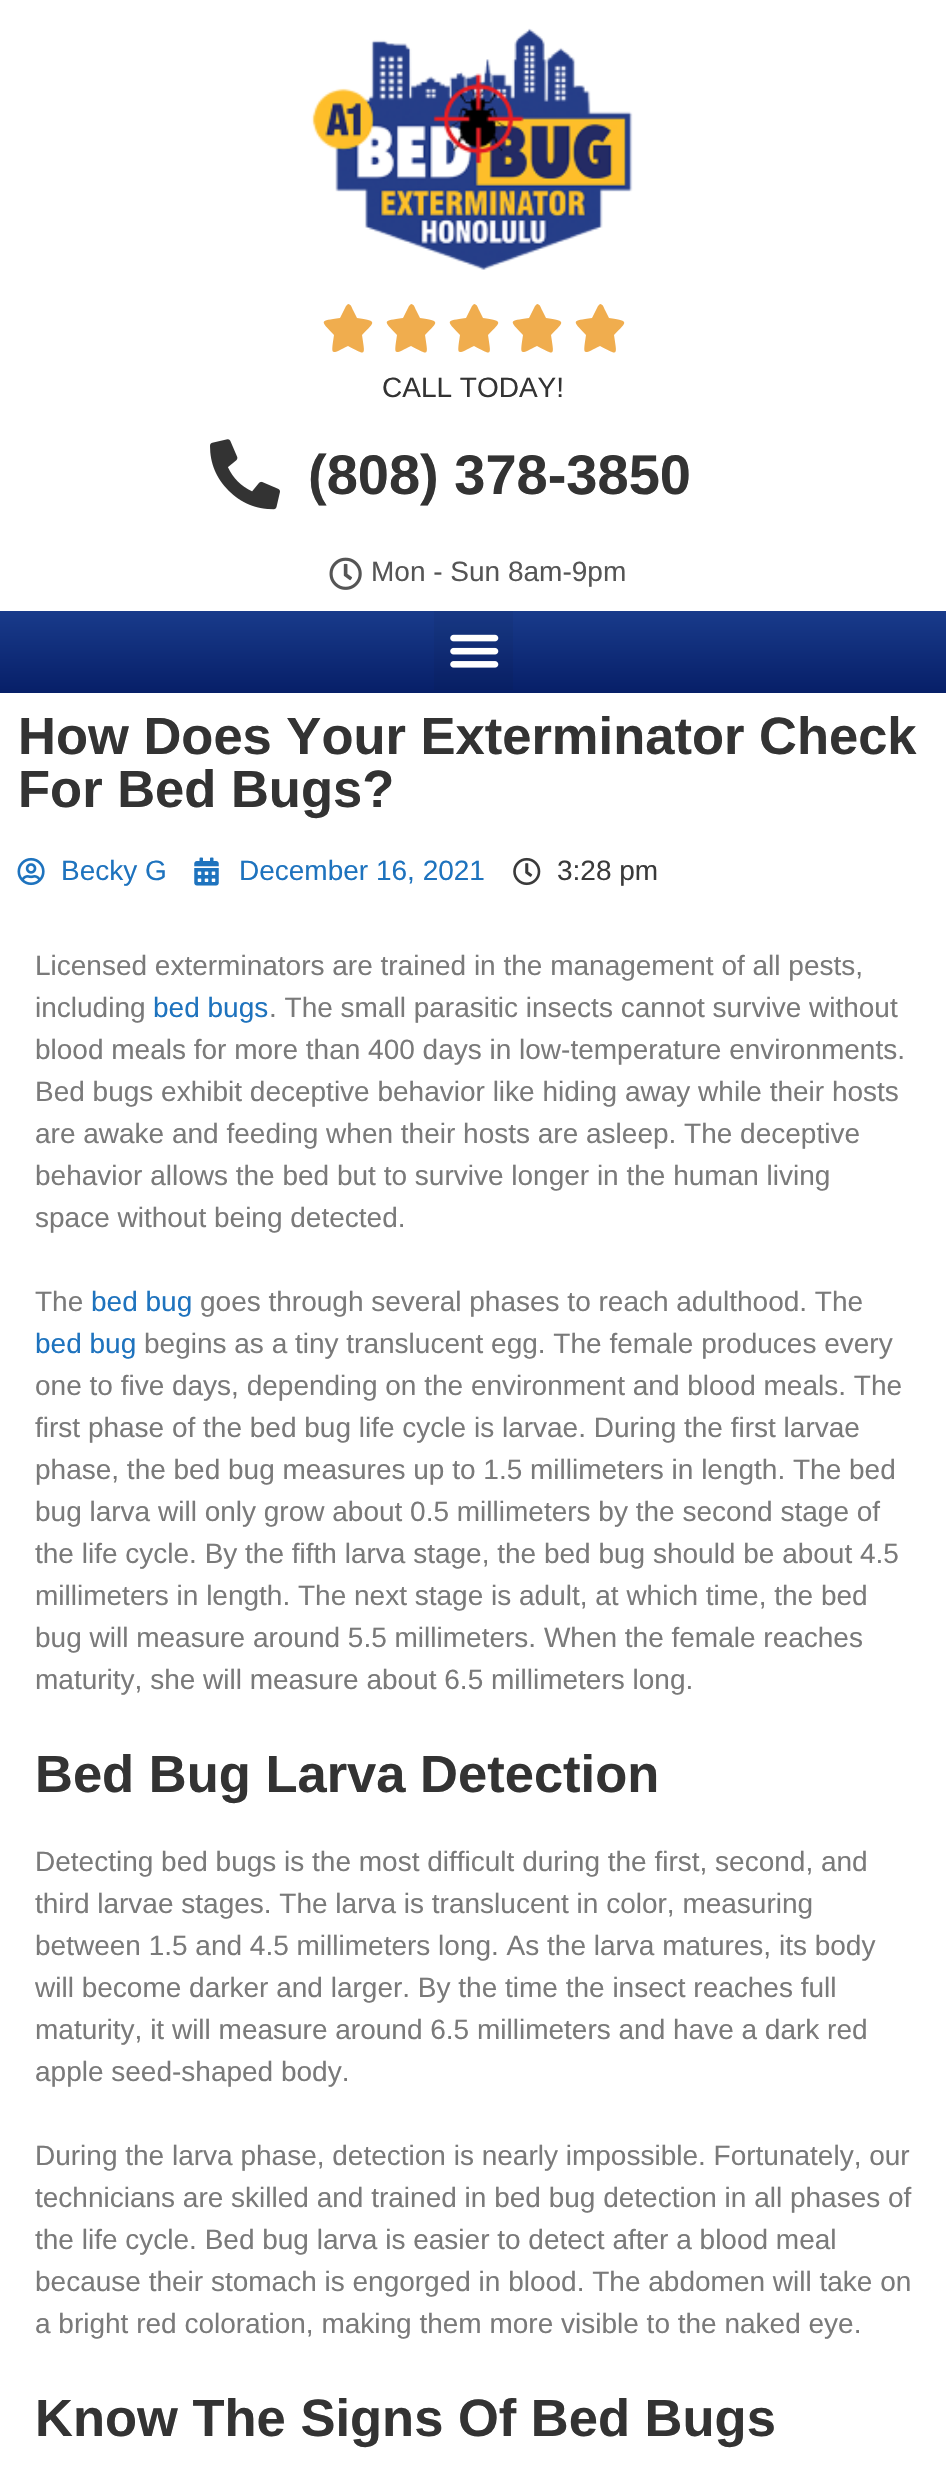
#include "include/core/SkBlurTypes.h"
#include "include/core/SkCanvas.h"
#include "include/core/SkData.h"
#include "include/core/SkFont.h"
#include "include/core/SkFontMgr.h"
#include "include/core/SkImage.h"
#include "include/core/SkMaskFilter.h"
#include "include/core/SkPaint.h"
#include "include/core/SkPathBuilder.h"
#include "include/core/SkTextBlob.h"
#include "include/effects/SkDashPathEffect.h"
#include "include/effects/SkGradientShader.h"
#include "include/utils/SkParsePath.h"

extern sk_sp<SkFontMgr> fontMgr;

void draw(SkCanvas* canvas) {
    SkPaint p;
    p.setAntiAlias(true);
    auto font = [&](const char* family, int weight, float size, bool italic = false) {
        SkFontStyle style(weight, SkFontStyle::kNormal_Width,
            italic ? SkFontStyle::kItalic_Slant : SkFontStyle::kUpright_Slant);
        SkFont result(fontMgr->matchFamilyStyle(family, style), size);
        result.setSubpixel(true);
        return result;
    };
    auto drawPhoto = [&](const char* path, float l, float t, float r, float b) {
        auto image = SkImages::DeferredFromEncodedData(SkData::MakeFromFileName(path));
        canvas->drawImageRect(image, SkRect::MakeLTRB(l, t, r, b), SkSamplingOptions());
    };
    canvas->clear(0xFFFFFFFF);
    drawPhoto("media/1.png", 311, 28, 633, 270);
    p.setColor(0xFFF0AD4E);
    canvas->drawPath(SkPathBuilder().moveTo(346, 306).lineTo(340, 318).cubicTo(319, 321, 320, 320, 334, 335).cubicTo(331, 356, 330, 355, 348, 346).cubicTo(367, 356, 365, 356, 362, 335).cubicTo(376, 321, 377, 321, 357, 318).lineTo(353, 310).cubicTo(352, 308, 351, 304, 348, 304).close().detach(), p);
    canvas->drawPath(SkPathBuilder().moveTo(409, 306).lineTo(403, 318).cubicTo(382, 321, 383, 320, 397, 335).cubicTo(394, 356, 393, 355, 411, 346).cubicTo(430, 356, 428, 356, 425, 335).cubicTo(439, 321, 440, 321, 420, 318).lineTo(416, 310).cubicTo(415, 308, 414, 304, 411, 304).close().detach(), p);
    canvas->drawPath(SkPathBuilder().moveTo(472, 306).lineTo(466, 318).cubicTo(445, 321, 446, 320, 460, 335).cubicTo(457, 356, 456, 355, 474, 346).cubicTo(493, 356, 491, 356, 488, 335).cubicTo(502, 321, 503, 321, 483, 318).lineTo(479, 310).cubicTo(478, 308, 477, 304, 474, 304).close().detach(), p);
    canvas->drawPath(SkPathBuilder().moveTo(535, 306).lineTo(529, 318).cubicTo(508, 321, 509, 320, 523, 335).cubicTo(520, 356, 519, 355, 537, 346).cubicTo(556, 356, 554, 356, 551, 335).cubicTo(565, 321, 566, 321, 546, 318).lineTo(542, 310).cubicTo(541, 308, 540, 304, 537, 304).close().detach(), p);
    canvas->drawPath(SkPathBuilder().moveTo(598, 306).lineTo(592, 318).cubicTo(571, 321, 572, 320, 586, 335).cubicTo(583, 356, 582, 355, 600, 346).cubicTo(619, 356, 617, 356, 614, 335).cubicTo(628, 321, 629, 321, 609, 318).lineTo(605, 310).cubicTo(604, 308, 603, 304, 600, 304).close().detach(), p);
    auto font1 = font("Liberation Sans", 400, 28);
    p.setColor(0xFF333333);
    canvas->drawString("CALL TODAY!", 382, 397, font1, p);
    drawPhoto("media/2.png", 210, 439, 280, 510);
    auto font2 = font("Liberation Sans", 700, 56);
    canvas->drawString("(808) 378-3850", 308, 494, font2, p);
    drawPhoto("media/3.png", 329, 557, 362, 590);
    p.setColor(0xFF555555);
    canvas->drawString("Mon - Sun 8am-9pm", 371, 581, font1, p);
    {
        const SkColor colors[] = {0xFF193B8B, 0xFF071F68};
        const float stops[] = {0, 1};
        const SkPoint ends[] = {{473, 611}, {473, 693}};
        p.setShader(SkGradientShader::MakeLinear(ends, colors, stops, 2, SkTileMode::kClamp));
        p.setAlpha(255);
    }
    canvas->drawRect(SkRect::MakeLTRB(0, 611, 946, 693), p);
    p.setShader(nullptr);
    p.setColor(0x0D000000);
    canvas->drawRect(SkRect::MakeLTRB(434, 611, 513, 690), p);
    drawPhoto("media/4.png", 450, 634, 499, 668);
    auto font3 = font("Liberation Sans", 700, 52.5f);
    p.setColor(0xFF333333);
    canvas->drawString("How Does Your Exterminator Check", 18, 754, font3, p);
    canvas->drawString("For Bed Bugs?", 18, 807, font3, p);
    drawPhoto("media/5.png", 17, 857, 45, 886);
    p.setColor(0xFF1E73BE);
    canvas->drawString("Becky G", 61, 880, font1, p);
    drawPhoto("media/6.png", 194, 857, 219, 886);
    canvas->drawString("December 16, 2021", 239, 880, font1, p);
    drawPhoto("media/7.png", 513, 857, 541, 886);
    p.setColor(0xFF3A3A3A);
    canvas->drawString("3:28 pm", 557, 880, font1, p);
    p.setColor(0xFF7A7A7A);
    canvas->drawString("Licensed exterminators are trained in the management of all pests,", 35, 975, font1, p);
    canvas->drawString("including", 35, 1017, font1, p);
    p.setColor(0xFF1E73BE);
    canvas->drawString("bed bugs", 153, 1017, font1, p);
    p.setColor(0xFF7A7A7A);
    {
        const struct { const char* s; float x, y; } items[] = {
            {". The small parasitic insects cannot survive without", 269, 1017},
            {"blood meals for more than 400 days in low-temperature environments.", 35, 1059},
            {"Bed bugs exhibit deceptive behavior like hiding away while their hosts", 35, 1101},
            {"are awake and feeding when their hosts are asleep. The deceptive", 35, 1143},
            {"behavior allows the bed but to survive longer in the human living", 35, 1185},
            {"space without being detected.", 35, 1227},
            {"The", 35, 1311},
        };
        for (auto [s, x, y] : items) {
            canvas->drawString(s, x, y, font1, p);
        }
    }
    p.setColor(0xFF1E73BE);
    canvas->drawString("bed bug", 91, 1311, font1, p);
    p.setColor(0xFF7A7A7A);
    canvas->drawString("goes through several phases to reach adulthood. The", 200, 1311, font1, p);
    p.setColor(0xFF1E73BE);
    canvas->drawString("bed bug", 35, 1353, font1, p);
    p.setColor(0xFF7A7A7A);
    {
        const struct { const char* s; float x, y; } items[] = {
            {"begins as a tiny translucent egg. The female produces every", 144, 1353},
            {"one to five days, depending on the environment and blood meals. The", 35, 1395},
            {"first phase of the bed bug life cycle is larvae. During the first larvae", 35, 1437},
            {"phase, the bed bug measures up to 1.5 millimeters in length. The bed", 35, 1479},
            {"bug larva will only grow about 0.5 millimeters by the second stage of", 35, 1521},
            {"the life cycle. By the fifth larva stage, the bed bug should be about 4.5", 35, 1563},
            {"millimeters in length. The next stage is adult, at which time, the bed", 35, 1605},
            {"bug will measure around 5.5 millimeters. When the female reaches", 35, 1647},
            {"maturity, she will measure about 6.5 millimeters long.", 35, 1689},
        };
        for (auto [s, x, y] : items) {
            canvas->drawString(s, x, y, font1, p);
        }
    }
    p.setColor(0xFF333333);
    canvas->drawString("Bed Bug Larva Detection", 35, 1792, font3, p);
    p.setColor(0xFF7A7A7A);
    {
        const struct { const char* s; float x, y; } items[] = {
            {"Detecting bed bugs is the most difficult during the first, second, and", 35, 1871},
            {"third larvae stages. The larva is translucent in color, measuring", 35, 1913},
            {"between 1.5 and 4.5 millimeters long. As the larva matures, its body", 35, 1955},
            {"will become darker and larger. By the time the insect reaches full", 35, 1997},
            {"maturity, it will measure around 6.5 millimeters and have a dark red", 35, 2039},
            {"apple seed-shaped body.", 35, 2081},
            {"During the larva phase, detection is nearly impossible. Fortunately, our", 35, 2165},
            {"technicians are skilled and trained in bed bug detection in all phases of", 35, 2207},
            {"the life cycle. Bed bug larva is easier to detect after a blood meal", 35, 2249},
            {"because their stomach is engorged in blood. The abdomen will take on", 35, 2291},
            {"a bright red coloration, making them more visible to the naked eye.", 35, 2333},
        };
        for (auto [s, x, y] : items) {
            canvas->drawString(s, x, y, font1, p);
        }
    }
    p.setColor(0xFF333333);
    canvas->drawString("Know The Signs Of Bed Bugs", 35, 2436, font3, p);
}
